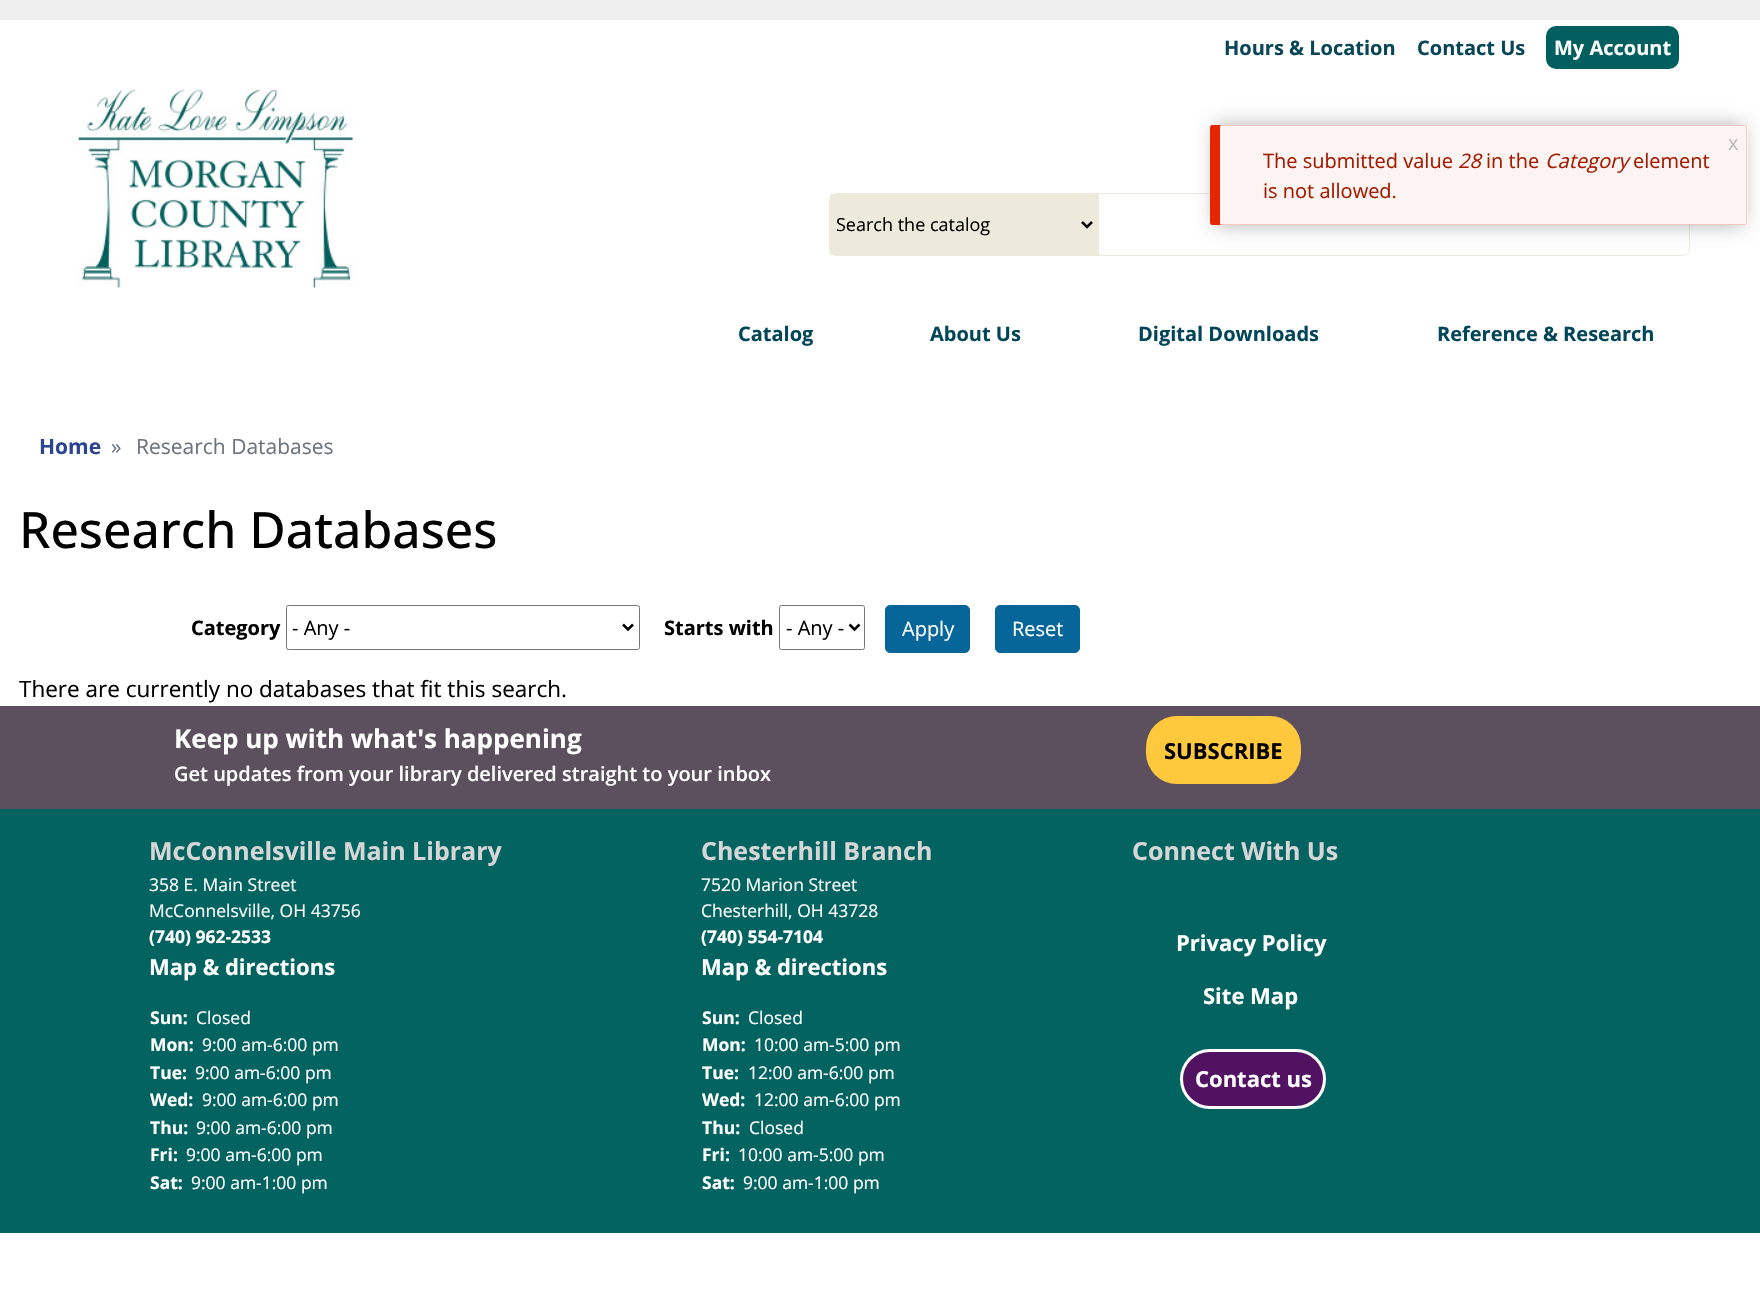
#include "include/core/SkBlurTypes.h"
#include "include/core/SkCanvas.h"
#include "include/core/SkData.h"
#include "include/core/SkFont.h"
#include "include/core/SkFontMgr.h"
#include "include/core/SkImage.h"
#include "include/core/SkMaskFilter.h"
#include "include/core/SkPaint.h"
#include "include/core/SkPathBuilder.h"
#include "include/core/SkTextBlob.h"
#include "include/effects/SkDashPathEffect.h"
#include "include/effects/SkGradientShader.h"
#include "include/utils/SkParsePath.h"

extern sk_sp<SkFontMgr> fontMgr;

void draw(SkCanvas* canvas) {
    SkPaint p;
    p.setAntiAlias(true);
    auto font = [&](const char* family, int weight, float size, bool italic = false) {
        SkFontStyle style(weight, SkFontStyle::kNormal_Width,
            italic ? SkFontStyle::kItalic_Slant : SkFontStyle::kUpright_Slant);
        SkFont result(fontMgr->matchFamilyStyle(family, style), size);
        result.setSubpixel(true);
        return result;
    };
    auto drawPhoto = [&](const char* path, float l, float t, float r, float b) {
        auto image = SkImages::DeferredFromEncodedData(SkData::MakeFromFileName(path));
        canvas->drawImageRect(image, SkRect::MakeLTRB(l, t, r, b), SkSamplingOptions());
    };
    canvas->clear(0xFFFFFFFF);
    p.setColor(0xFFEFEFEF);
    canvas->drawRect(SkRect::MakeLTRB(0, 0, 1760, 20), p);
    auto font1 = font("Open Sans", 700, 20);
    p.setColor(0xFF084658);
    canvas->drawString("Hours & Location", 1224, 55, font1, p);
    canvas->drawString("Contact Us", 1417, 55, font1, p);
    p.setColor(0xFF025F60);
    canvas->drawRoundRect(SkRect::MakeLTRB(1546, 26, 1679, 69), 10, 10, p);
    p.setColor(0xFFFFFFFF);
    canvas->drawString("My Account", 1554, 55, font1, p);
    drawPhoto("media/1.png", 75, 88, 355, 288);
    p.setStyle(SkPaint::kStroke_Style);
    p.setStrokeWidth(1);
    p.setColor(0xFFEDEADC);
    canvas->drawRoundRect(SkRect::MakeLTRB(829.5f, 193.5f, 1689.5f, 255.5f), 7.5f, 7.5f, p);
    p.setStyle(SkPaint::kFill_Style);
    canvas->drawRect(SkRect::MakeLTRB(830, 194, 1099, 255), p);
    p.setStyle(SkPaint::kStroke_Style);
    p.setStrokeWidth(2.5f);
    p.setColor(0xFF000000);
    canvas->drawPath(SkPathBuilder().moveTo(1082, 222).lineTo(1087, 227).lineTo(1092, 222).detach(), p);
    auto font2 = font("Open Sans", 400, 18);
    p.setStyle(SkPaint::kFill_Style);
    canvas->drawString("Search the catalog", 836, 231, font2, p);
    p.setColor(0xFF024659);
    {
        const struct { const char* s; float x, y; } items[] = {
            {"Catalog", 738, 341},
            {"About Us", 930, 341},
            {"Digital Downloads", 1138, 341},
            {"Reference & Research", 1437, 341},
        };
        for (auto [s, x, y] : items) {
            canvas->drawString(s, x, y, font1, p);
        }
    }
    p.setColor(0x4D000000);
    p.setMaskFilter(SkMaskFilter::MakeBlur(kNormal_SkBlurStyle, 9.5f));
    canvas->drawRoundRect(SkRect::MakeLTRB(1215, 125, 1743, 225), 2.5f, 2.5f, p);
    p.setMaskFilter(nullptr);
    p.setColor(0xFFE62600);
    canvas->drawPath(SkPathBuilder().moveTo(1212, 125).cubicTo(1211, 125, 1210, 126, 1210, 128).lineTo(1210, 222).cubicTo(1210, 224, 1211, 225, 1212, 225).lineTo(1222, 225).cubicTo(1221, 225, 1220, 224, 1220, 222).lineTo(1220, 128).cubicTo(1220, 126, 1221, 125, 1222, 125).close().detach(), p);
    p.setColor(0xFFFCF4F2);
    canvas->drawRoundRect(SkRect::MakeLTRB(1220, 125, 1748, 225), 2.5f, 2.5f, p);
    {
        const struct { float l, t, r, b; SkColor color; } items[] = {
            {1221, 125, 1746, 126, 0xFFF9C9BF},
            {1746, 126, 1747, 224, 0xFFF9C9BF},
            {1221, 224, 1746, 225, 0xFFF9C9BF},
        };
        for (auto [l, t, r, b, color] : items) {
            p.setColor(color);
            canvas->drawRect(SkRect::MakeLTRB(l, t, r, b), p);
        }
    }
    auto font3 = font("Open Sans", 400, 20);
    p.setColor(0xFFBDB7B6);
    canvas->drawString("x", 1728, 150, font3, p);
    p.setColor(0xFFA51B00);
    canvas->drawString("The submitted value", 1263, 168, font3, p);
    auto font4 = font("Open Sans", 400, 20, true);
    canvas->drawString("28", 1458, 168, font4, p);
    canvas->drawString("in the", 1486, 168, font3, p);
    canvas->drawString("Category", 1545, 168, font4, p);
    canvas->drawString("element", 1633, 168, font3, p);
    canvas->drawString("is not allowed.", 1263, 198, font3, p);
    auto font5 = font("Open Sans", 700, 21);
    p.setColor(0xFF2B4593);
    canvas->drawString("Home", 39, 454, font5, p);
    auto font6 = font("Open Sans", 400, 21);
    p.setColor(0xFF6C757D);
    canvas->drawString("»", 111, 454, font6, p);
    canvas->drawString("Research Databases", 136, 454, font6, p);
    auto font7 = font("Open Sans", 500, 50);
    p.setColor(0xFF000000);
    canvas->drawString("Research Databases", 19, 548, font7, p);
    canvas->drawString("Category", 191, 635, font1, p);
    p.setStyle(SkPaint::kStroke_Style);
    p.setStrokeWidth(1);
    p.setColor(0xFF767676);
    canvas->drawRoundRect(SkRect::MakeLTRB(286.5f, 605.5f, 639.5f, 649.5f), 2, 2, p);
    p.setStrokeWidth(2.5f);
    p.setColor(0xFF000000);
    canvas->drawPath(SkPathBuilder().moveTo(623, 624.5f).lineTo(628, 629.5f).lineTo(633, 624.5f).detach(), p);
    p.setStyle(SkPaint::kFill_Style);
    canvas->drawString("- Any -", 292, 635, font3, p);
    canvas->drawString("Starts with", 664, 635, font1, p);
    p.setStyle(SkPaint::kStroke_Style);
    p.setStrokeWidth(1);
    p.setColor(0xFF767676);
    canvas->drawRoundRect(SkRect::MakeLTRB(779.5f, 605.5f, 864.5f, 649.5f), 2, 2, p);
    p.setStrokeWidth(2.5f);
    p.setColor(0xFF000000);
    canvas->drawPath(SkPathBuilder().moveTo(849.5f, 624.5f).lineTo(854.5f, 629.5f).lineTo(859.5f, 624.5f).detach(), p);
    p.setStyle(SkPaint::kFill_Style);
    canvas->drawString("- Any -", 786, 635, font3, p);
    p.setColor(0xFF066699);
    canvas->drawRoundRect(SkRect::MakeLTRB(885.5f, 605.5f, 969.5f, 652.5f), 4.5f, 4.5f, p);
    p.setStyle(SkPaint::kStroke_Style);
    p.setStrokeWidth(1);
    canvas->drawRoundRect(SkRect::MakeLTRB(885.5f, 605.5f, 969.5f, 652.5f), 4.5f, 4.5f, p);
    p.setStyle(SkPaint::kFill_Style);
    p.setColor(0xFFFFFFFF);
    canvas->drawString("Apply", 902, 636, font3, p);
    p.setColor(0xFF066699);
    canvas->drawRoundRect(SkRect::MakeLTRB(995.5f, 605.5f, 1079.5f, 652.5f), 4.5f, 4.5f, p);
    p.setStyle(SkPaint::kStroke_Style);
    canvas->drawRoundRect(SkRect::MakeLTRB(995.5f, 605.5f, 1079.5f, 652.5f), 4.5f, 4.5f, p);
    p.setStyle(SkPaint::kFill_Style);
    p.setColor(0xFFFFFFFF);
    canvas->drawString("Reset", 1012, 636, font3, p);
    auto font8 = font("Open Sans", 400, 22.5f);
    p.setColor(0xFF000000);
    canvas->drawString("There are currently no databases that fit this search.", 19, 697, font8, p);
    p.setColor(0xFF5C505E);
    canvas->drawRect(SkRect::MakeLTRB(0, 706, 1760, 809), p);
    auto font9 = font("Open Sans", 700, 26);
    p.setColor(0xFFFFFFFF);
    canvas->drawString("Keep up with what's happening", 174, 748, font9, p);
    auto font10 = font("Open Sans", 600, 20);
    canvas->drawString("Get updates from your library delivered straight to your inbox", 174, 781, font10, p);
    p.setColor(0xFFFFC83D);
    canvas->drawRoundRect(SkRect::MakeLTRB(1146, 716, 1301, 784), 31, 31, p);
    auto font11 = font("Open Sans", 700, 22);
    p.setColor(0xFF000000);
    canvas->drawString("SUBSCRIBE", 1164, 759, font11, p);
    p.setColor(0xFF036361);
    canvas->drawRect(SkRect::MakeLTRB(0, 809, 1760, 1233), p);
    auto font12 = font("Open Sans", 700, 25);
    p.setColor(0xFFD6D6D6);
    canvas->drawString("McConnelsville Main Library", 149, 860, font12, p);
    auto font13 = font("Open Sans", 400, 17.5f);
    p.setColor(0xFFFFFFFF);
    canvas->drawString("358 E. Main Street", 149, 891, font13, p);
    canvas->drawString("McConnelsville, OH 43756", 149, 917, font13, p);
    auto font14 = font("Open Sans", 700, 17.5f);
    canvas->drawString("(740) 962-2533", 149, 943, font14, p);
    canvas->drawString("Map & directions", 149, 975, font11, p);
    canvas->drawString("Sun:", 150, 1024, font14, p);
    canvas->drawString("Closed", 196, 1024, font13, p);
    canvas->drawString("Mon:", 150, 1051, font14, p);
    canvas->drawString("9:00 am-6:00 pm", 202, 1051, font13, p);
    canvas->drawString("Tue:", 150, 1079, font14, p);
    canvas->drawString("9:00 am-6:00 pm", 195, 1079, font13, p);
    canvas->drawString("Wed:", 150, 1106, font14, p);
    canvas->drawString("9:00 am-6:00 pm", 202, 1106, font13, p);
    canvas->drawString("Thu:", 150, 1134, font14, p);
    canvas->drawString("9:00 am-6:00 pm", 196, 1134, font13, p);
    canvas->drawString("Fri:", 150, 1161, font14, p);
    canvas->drawString("9:00 am-6:00 pm", 186, 1161, font13, p);
    canvas->drawString("Sat:", 150, 1189, font14, p);
    canvas->drawString("9:00 am-1:00 pm", 191, 1189, font13, p);
    p.setColor(0xFFD6D6D6);
    canvas->drawString("Chesterhill Branch", 701, 860, font12, p);
    p.setColor(0xFFFFFFFF);
    canvas->drawString("7520 Marion Street", 701, 891, font13, p);
    canvas->drawString("Chesterhill, OH 43728", 701, 917, font13, p);
    canvas->drawString("(740) 554-7104", 701, 943, font14, p);
    canvas->drawString("Map & directions", 701, 975, font11, p);
    canvas->drawString("Sun:", 702, 1024, font14, p);
    canvas->drawString("Closed", 748, 1024, font13, p);
    canvas->drawString("Mon:", 702, 1051, font14, p);
    canvas->drawString("10:00 am-5:00 pm", 754, 1051, font13, p);
    canvas->drawString("Tue:", 702, 1079, font14, p);
    canvas->drawString("12:00 am-6:00 pm", 748, 1079, font13, p);
    canvas->drawString("Wed:", 702, 1106, font14, p);
    canvas->drawString("12:00 am-6:00 pm", 754, 1106, font13, p);
    canvas->drawString("Thu:", 702, 1134, font14, p);
    canvas->drawString("Closed", 749, 1134, font13, p);
    canvas->drawString("Fri:", 702, 1161, font14, p);
    canvas->drawString("10:00 am-5:00 pm", 738, 1161, font13, p);
    canvas->drawString("Sat:", 702, 1189, font14, p);
    canvas->drawString("9:00 am-1:00 pm", 743, 1189, font13, p);
    p.setColor(0xFFD6D6D6);
    canvas->drawString("Connect With Us", 1132, 860, font12, p);
    p.setColor(0xFFFFFFFF);
    canvas->drawString("Privacy Policy", 1176, 951, font11, p);
    canvas->drawString("Site Map", 1203, 1004, font11, p);
    p.setColor(0xFF521262);
    canvas->drawRoundRect(SkRect::MakeLTRB(1181.5f, 1050.5f, 1324.5f, 1107.5f), 28.5f, 28.5f, p);
    p.setStyle(SkPaint::kStroke_Style);
    p.setStrokeWidth(3);
    p.setColor(0xFFFFFFFF);
    canvas->drawRoundRect(SkRect::MakeLTRB(1181.5f, 1050.5f, 1324.5f, 1107.5f), 28.5f, 28.5f, p);
    p.setStyle(SkPaint::kFill_Style);
    canvas->drawString("Contact us", 1195, 1087, font11, p);
}
